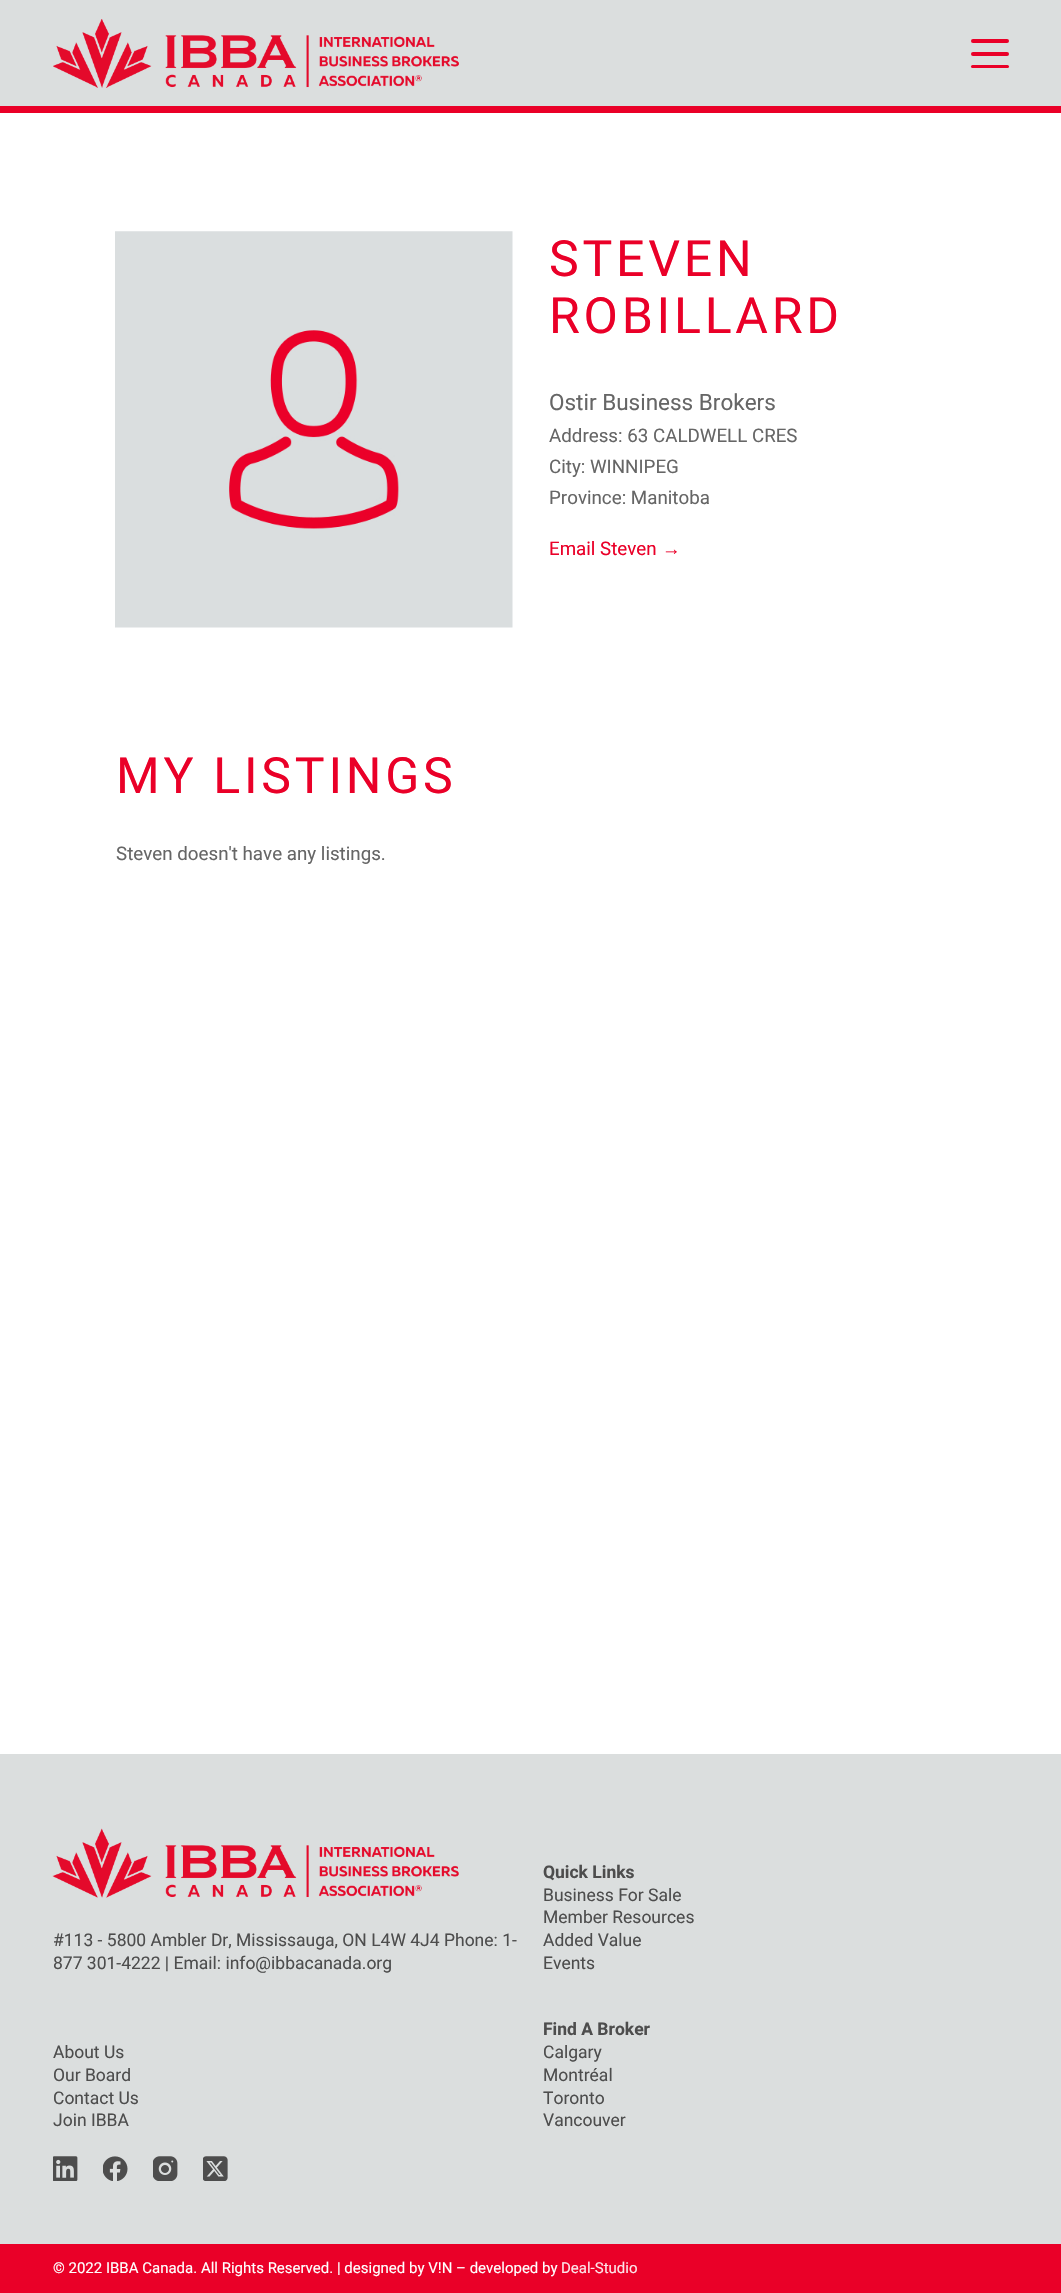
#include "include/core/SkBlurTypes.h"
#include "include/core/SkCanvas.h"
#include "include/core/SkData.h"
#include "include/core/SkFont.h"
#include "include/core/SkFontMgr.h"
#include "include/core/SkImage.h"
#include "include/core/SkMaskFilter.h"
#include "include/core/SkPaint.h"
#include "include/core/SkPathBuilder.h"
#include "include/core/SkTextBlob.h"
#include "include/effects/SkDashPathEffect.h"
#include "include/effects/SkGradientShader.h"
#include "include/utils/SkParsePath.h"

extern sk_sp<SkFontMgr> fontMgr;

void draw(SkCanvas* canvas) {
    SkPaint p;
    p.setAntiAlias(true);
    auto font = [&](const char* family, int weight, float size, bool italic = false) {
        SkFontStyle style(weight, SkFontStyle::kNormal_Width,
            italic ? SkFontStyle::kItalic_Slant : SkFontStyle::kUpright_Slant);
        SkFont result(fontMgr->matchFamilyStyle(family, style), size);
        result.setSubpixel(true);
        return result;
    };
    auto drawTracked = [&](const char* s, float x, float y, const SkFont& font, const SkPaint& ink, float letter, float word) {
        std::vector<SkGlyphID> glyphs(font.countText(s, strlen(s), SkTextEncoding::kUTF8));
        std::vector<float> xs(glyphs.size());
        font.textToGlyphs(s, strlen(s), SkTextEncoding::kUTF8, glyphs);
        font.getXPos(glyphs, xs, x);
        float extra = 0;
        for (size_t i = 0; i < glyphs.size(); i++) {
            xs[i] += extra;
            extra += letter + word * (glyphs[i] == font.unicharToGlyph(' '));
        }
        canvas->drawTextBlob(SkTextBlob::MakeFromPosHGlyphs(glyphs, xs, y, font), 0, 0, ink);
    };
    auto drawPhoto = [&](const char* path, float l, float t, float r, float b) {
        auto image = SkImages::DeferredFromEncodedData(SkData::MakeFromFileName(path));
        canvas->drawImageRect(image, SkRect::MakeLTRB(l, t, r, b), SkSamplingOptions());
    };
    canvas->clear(0xFFFFFFFF);
    p.setColor(0xFFDBDEDE);
    canvas->drawRect(SkRect::MakeLTRB(0, 0, 1061, 106), p);
    p.setColor(0xFFEA0028);
    canvas->drawRect(SkRect::MakeLTRB(0, 106, 1061, 113), p);
    drawPhoto("media/1.png", 53, 19, 459, 88);
    canvas->drawRoundRect(SkRect::MakeLTRB(971, 39, 1009, 43), 2, 2, p);
    canvas->drawRoundRect(SkRect::MakeLTRB(971, 52, 1009, 56), 2, 2, p);
    canvas->drawRoundRect(SkRect::MakeLTRB(971, 65, 1009, 68), 1.5f, 1.5f, p);
    drawPhoto("media/2.png", 115, 231, 513, 628);
    auto font1 = font("Roboto", 400, 50);
    drawTracked("STEVEN", 549, 276, font1, p, 3.75f, 0);
    drawTracked("ROBILLARD", 549, 333, font1, p, 3.75f, 0);
    auto font2 = font("Roboto", 400, 22.5f);
    p.setColor(0xFF666666);
    canvas->drawString("Ostir Business Brokers", 549, 410, font2, p);
    auto font3 = font("Roboto", 400, 18.75f);
    {
        const struct { const char* s; float x, y; } items[] = {
            {"Address: 63 CALDWELL CRES", 549, 442},
            {"City: WINNIPEG", 549, 473},
            {"Province: Manitoba", 549, 504},
        };
        for (auto [s, x, y] : items) {
            canvas->drawString(s, x, y, font3, p);
        }
    }
    p.setColor(0xFFEA0028);
    canvas->drawString("Email Steven", 549, 555, font3, p);
    auto font4 = font("Liberation Serif", 400, 18.75f);
    canvas->drawString("→", 662, 555, font4, p);
    drawTracked("MY LISTINGS", 116, 793, font1, p, 3.75f, 0);
    p.setColor(0xFF666666);
    canvas->drawString("Steven doesn't have any listings.", 116, 860, font3, p);
    p.setColor(0xFFDBDEDE);
    canvas->drawRect(SkRect::MakeLTRB(0, 1754, 1061, 2244), p);
    drawPhoto("media/3.png", 52, 1828, 459, 1898);
    auto font5 = font("Roboto", 400, 17.5f);
    p.setColor(0xFF4D4D4D);
    canvas->drawString("#113 - 5800 Ambler Dr, Mississauga, ON L4W 4J4 Phone: 1-", 53, 1946, font5, p);
    canvas->drawString("877 301-4222 | Email: info@ibbacanada.org", 53, 1969, font5, p);
    auto font6 = font("Roboto", 700, 17.5f);
    canvas->drawString("Quick Links", 543, 1878, font6, p);
    {
        const struct { const char* s; float x, y; } items[] = {
            {"Business For Sale", 543, 1901},
            {"Member Resources", 543, 1923},
            {"Added Value", 543, 1946},
            {"Events", 543, 1969},
            {"About Us", 53, 2058},
            {"Our Board", 53, 2081},
            {"Contact Us", 53, 2104},
            {"Join IBBA", 53, 2126},
        };
        for (auto [s, x, y] : items) {
            canvas->drawString(s, x, y, font5, p);
        }
    }
    canvas->drawString("Find A Broker", 543, 2035, font6, p);
    {
        const struct { const char* s; float x, y; } items[] = {
            {"Calgary", 543, 2058},
            {"Montréal", 543, 2081},
            {"Toronto", 543, 2104},
            {"Vancouver", 543, 2126},
        };
        for (auto [s, x, y] : items) {
            canvas->drawString(s, x, y, font5, p);
        }
    }
    drawPhoto("media/4.png", 53, 2156, 78, 2181);
    drawPhoto("media/5.png", 103, 2156, 128, 2181);
    drawPhoto("media/6.png", 153, 2156, 178, 2181);
    drawPhoto("media/7.png", 203, 2156, 228, 2181);
    p.setColor(0xFFEA0028);
    canvas->drawRect(SkRect::MakeLTRB(0, 2244, 1061, 2293), p);
    auto font7 = font("Roboto", 400, 15);
    p.setColor(0xFFFFFFFF);
    canvas->drawString("© 2022 IBBA Canada. All Rights Reserved. | designed by V!N – developed by", 53, 2273, font7, p);
    p.setColor(0xFFFDE6EA);
    canvas->drawString("Deal-Studio", 561, 2273, font7, p);
}
